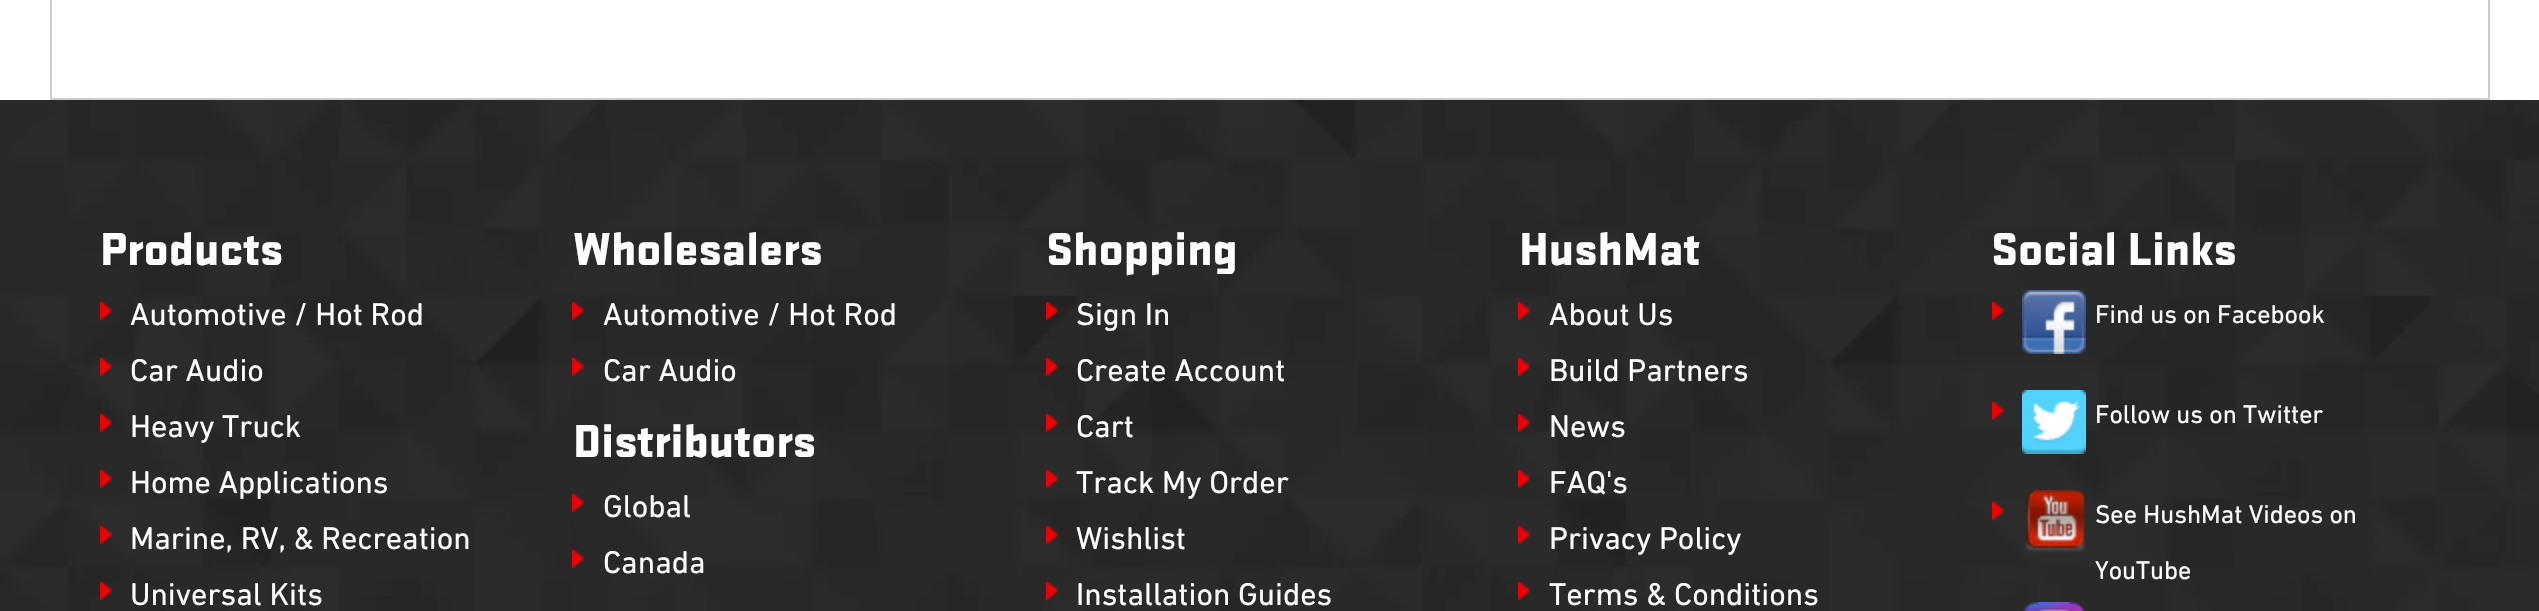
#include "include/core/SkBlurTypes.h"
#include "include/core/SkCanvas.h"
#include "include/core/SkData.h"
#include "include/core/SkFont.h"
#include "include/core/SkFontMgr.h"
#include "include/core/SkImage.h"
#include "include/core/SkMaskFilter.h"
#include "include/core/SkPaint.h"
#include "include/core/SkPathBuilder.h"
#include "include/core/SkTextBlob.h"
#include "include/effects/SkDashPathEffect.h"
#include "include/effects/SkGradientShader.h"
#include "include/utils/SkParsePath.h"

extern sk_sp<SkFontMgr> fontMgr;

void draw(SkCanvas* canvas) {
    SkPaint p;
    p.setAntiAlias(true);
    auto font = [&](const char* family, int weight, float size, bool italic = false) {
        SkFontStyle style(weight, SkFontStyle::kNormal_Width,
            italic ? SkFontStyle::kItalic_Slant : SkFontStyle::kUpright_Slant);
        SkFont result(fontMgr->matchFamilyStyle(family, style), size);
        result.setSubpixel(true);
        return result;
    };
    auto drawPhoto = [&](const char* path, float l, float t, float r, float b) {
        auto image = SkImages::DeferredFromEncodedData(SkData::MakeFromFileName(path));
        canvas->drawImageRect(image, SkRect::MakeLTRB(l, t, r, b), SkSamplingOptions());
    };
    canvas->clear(0xFFFFFFFF);
    p.setStyle(SkPaint::kStroke_Style);
    p.setStrokeWidth(2);
    p.setColor(0xFFCCCCCC);
    canvas->drawRect(SkRect::MakeLTRB(51, -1, 2489, 99), p);
    drawPhoto("media/1.png", 0, 100, 2539, 611);
    auto font1 = font("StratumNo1", 900, 48);
    p.setStyle(SkPaint::kFill_Style);
    p.setColor(0xFFFFFFFF);
    canvas->drawString("Products", 100, 265, font1, p);
    drawPhoto("media/2.png", 100, 302, 112, 320);
    auto font2 = font("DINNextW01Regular", 400, 32);
    canvas->drawString("Automotive / Hot Rod", 130, 325, font2, p);
    drawPhoto("media/3.png", 100, 358, 112, 376);
    canvas->drawString("Car Audio", 130, 381, font2, p);
    drawPhoto("media/4.png", 100, 414, 112, 432);
    canvas->drawString("Heavy Truck", 130, 437, font2, p);
    drawPhoto("media/5.png", 100, 470, 112, 488);
    canvas->drawString("Home Applications", 130, 493, font2, p);
    drawPhoto("media/6.png", 100, 526, 112, 544);
    canvas->drawString("Marine, RV, & Recreation", 130, 549, font2, p);
    drawPhoto("media/7.png", 100, 582, 112, 600);
    canvas->drawString("Universal Kits", 130, 605, font2, p);
    canvas->drawString("Wholesalers", 573, 265, font1, p);
    drawPhoto("media/8.png", 572, 302, 584, 320);
    canvas->drawString("Automotive / Hot Rod", 603, 325, font2, p);
    drawPhoto("media/9.png", 572, 358, 584, 376);
    canvas->drawString("Car Audio", 603, 381, font2, p);
    canvas->drawString("Distributors", 573, 457, font1, p);
    drawPhoto("media/5.png", 572, 494, 584, 512);
    canvas->drawString("Global", 603, 517, font2, p);
    drawPhoto("media/10.png", 572, 550, 584, 568);
    canvas->drawString("Canada", 603, 573, font2, p);
    canvas->drawString("Shopping", 1046, 265, font1, p);
    drawPhoto("media/11.png", 1046, 302, 1058, 320);
    canvas->drawString("Sign In", 1076, 325, font2, p);
    drawPhoto("media/12.png", 1046, 358, 1058, 376);
    canvas->drawString("Create Account", 1076, 381, font2, p);
    drawPhoto("media/13.png", 1046, 414, 1058, 432);
    canvas->drawString("Cart", 1076, 437, font2, p);
    drawPhoto("media/14.png", 1046, 470, 1058, 488);
    canvas->drawString("Track My Order", 1076, 493, font2, p);
    drawPhoto("media/15.png", 1046, 526, 1058, 544);
    canvas->drawString("Wishlist", 1076, 549, font2, p);
    drawPhoto("media/16.png", 1046, 582, 1058, 600);
    canvas->drawString("Installation Guides", 1076, 605, font2, p);
    canvas->drawString("HushMat", 1519, 265, font1, p);
    drawPhoto("media/17.png", 1518, 302, 1530, 320);
    canvas->drawString("About Us", 1549, 325, font2, p);
    drawPhoto("media/18.png", 1518, 358, 1530, 376);
    canvas->drawString("Build Partners", 1549, 381, font2, p);
    drawPhoto("media/19.png", 1518, 414, 1530, 432);
    canvas->drawString("News", 1549, 437, font2, p);
    drawPhoto("media/20.png", 1518, 470, 1530, 488);
    canvas->drawString("FAQ's", 1549, 493, font2, p);
    drawPhoto("media/14.png", 1518, 526, 1530, 544);
    canvas->drawString("Privacy Policy", 1549, 549, font2, p);
    drawPhoto("media/21.png", 1518, 582, 1530, 600);
    canvas->drawString("Terms & Conditions", 1549, 605, font2, p);
    canvas->drawString("Social Links", 1991, 265, font1, p);
    drawPhoto("media/5.png", 1992, 302, 2004, 320);
    drawPhoto("media/22.png", 2022, 290, 2086, 354);
    auto font3 = font("DINNextW01Regular", 400, 26);
    canvas->drawString("Find us on Facebook", 2095, 323, font3, p);
    drawPhoto("media/23.png", 1992, 402, 2004, 420);
    drawPhoto("media/24.png", 2022, 390, 2086, 454);
    canvas->drawString("Follow us on Twitter", 2095, 423, font3, p);
    drawPhoto("media/23.png", 1992, 502, 2004, 520);
    drawPhoto("media/25.png", 2025, 490, 2086, 553);
    canvas->drawString("See HushMat Videos on", 2095, 523, font3, p);
    canvas->drawString("YouTube", 2095, 579, font3, p);
    drawPhoto("media/26.png", 2023, 602, 2085, 611);
}
